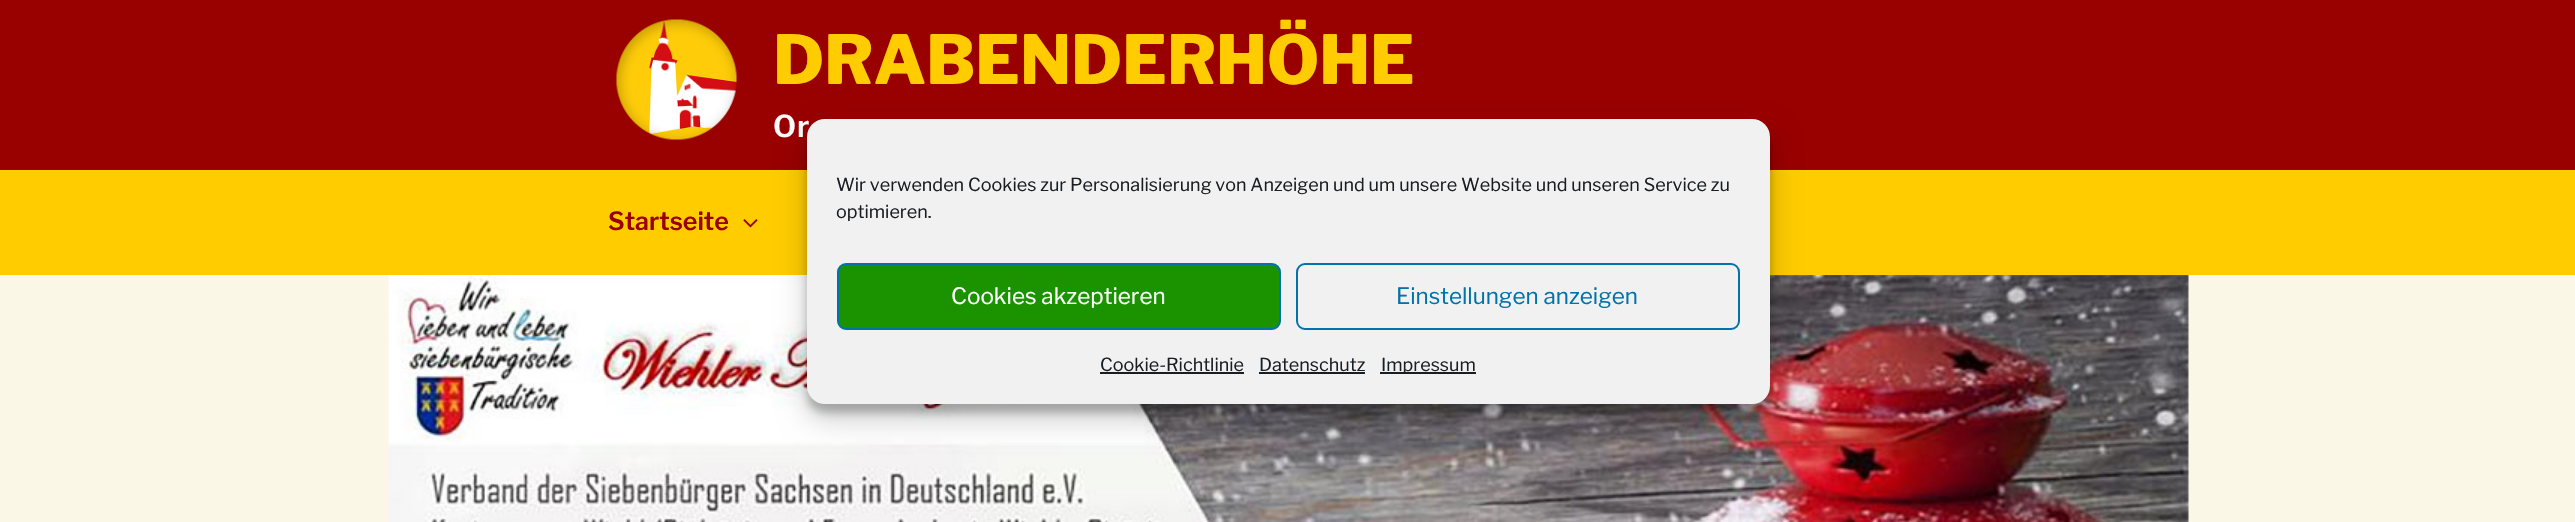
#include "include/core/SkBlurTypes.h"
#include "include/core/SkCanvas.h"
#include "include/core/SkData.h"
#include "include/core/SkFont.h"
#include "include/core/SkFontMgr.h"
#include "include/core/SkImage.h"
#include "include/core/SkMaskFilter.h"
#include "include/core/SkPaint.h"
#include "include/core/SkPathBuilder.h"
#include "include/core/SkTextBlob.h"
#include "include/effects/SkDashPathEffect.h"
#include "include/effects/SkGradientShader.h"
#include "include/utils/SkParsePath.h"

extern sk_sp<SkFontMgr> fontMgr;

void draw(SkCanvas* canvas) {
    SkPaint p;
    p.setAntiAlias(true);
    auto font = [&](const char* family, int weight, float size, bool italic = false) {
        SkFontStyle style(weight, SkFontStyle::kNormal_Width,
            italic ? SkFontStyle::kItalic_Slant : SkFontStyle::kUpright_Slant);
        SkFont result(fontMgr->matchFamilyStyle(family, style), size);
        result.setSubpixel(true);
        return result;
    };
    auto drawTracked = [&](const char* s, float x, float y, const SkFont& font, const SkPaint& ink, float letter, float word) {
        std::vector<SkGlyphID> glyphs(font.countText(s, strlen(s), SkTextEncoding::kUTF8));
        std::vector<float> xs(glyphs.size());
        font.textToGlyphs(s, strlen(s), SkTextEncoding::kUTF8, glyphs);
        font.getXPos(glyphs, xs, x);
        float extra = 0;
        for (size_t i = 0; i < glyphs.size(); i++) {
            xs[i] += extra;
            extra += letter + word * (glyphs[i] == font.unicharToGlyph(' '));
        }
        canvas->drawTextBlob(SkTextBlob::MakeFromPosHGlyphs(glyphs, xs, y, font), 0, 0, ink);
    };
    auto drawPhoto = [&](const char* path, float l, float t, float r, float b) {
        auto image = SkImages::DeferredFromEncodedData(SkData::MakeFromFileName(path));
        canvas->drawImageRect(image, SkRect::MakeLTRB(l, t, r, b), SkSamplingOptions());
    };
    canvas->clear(0xFFFBF7E6);
    p.setColor(0xFF990000);
    canvas->drawRect(SkRect::MakeLTRB(0, 0, 2575, 170), p);
    drawPhoto("media/1.png", 616, 19, 737, 140);
    auto font1 = font("Libre Franklin", 100, 67.25f);
    p.setColor(0xFFFFCC00);
    canvas->drawString("DRABENDERHÖHE", 773, 84, font1, p);
    auto font2 = font("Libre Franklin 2", 100, 30);
    p.setColor(0xFFFFFFFF);
    drawTracked("Or", 773, 137, font2, p, 1, 0);
    p.setColor(0xFFFFCC00);
    canvas->drawRect(SkRect::MakeLTRB(0, 170, 2575, 275), p);
    auto font3 = font("Libre Franklin 2", 100, 25);
    p.setColor(0xFF990000);
    canvas->drawString("Startseite", 608, 230, font3, p);
    drawPhoto("media/2.png", 743, 219, 758, 228);
    drawPhoto("media/3.png", 388, 275, 2189, 522);
    p.setColor(0x3B000000);
    p.setMaskFilter(SkMaskFilter::MakeBlur(kNormal_SkBlurStyle, 4.5f));
    canvas->drawRoundRect(SkRect::MakeLTRB(807, 128, 1770, 413), 18, 18, p);
    p.setMaskFilter(nullptr);
    p.setColor(0x30000000);
    p.setMaskFilter(SkMaskFilter::MakeBlur(kNormal_SkBlurStyle, 15));
    canvas->drawRoundRect(SkRect::MakeLTRB(807, 134, 1770, 419), 18, 18, p);
    p.setMaskFilter(nullptr);
    p.setColor(0xFFF1F1F1);
    canvas->drawRoundRect(SkRect::MakeLTRB(807, 119, 1770, 404), 18, 18, p);
    auto font4 = font("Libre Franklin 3", 100, 18);
    p.setColor(0xFF191E23);
    canvas->drawString("Wir verwenden Cookies zur Personalisierung von Anzeigen und um unsere Website und unseren Service zu", 836, 191, font4, p);
    canvas->drawString("optimieren.", 836, 218, font4, p);
    p.setColor(0xFF1B9300);
    canvas->drawRoundRect(SkRect::MakeLTRB(838, 264, 1280, 329), 8, 8, p);
    p.setStyle(SkPaint::kStroke_Style);
    p.setStrokeWidth(2);
    p.setColor(0xFF0073AA);
    canvas->drawRoundRect(SkRect::MakeLTRB(838, 264, 1280, 329), 8, 8, p);
    auto font5 = font("Libre Franklin 3", 100, 22.5f);
    p.setStyle(SkPaint::kFill_Style);
    p.setColor(0xFFFFFFFF);
    canvas->drawString("Cookies akzeptieren", 951, 304, font5, p);
    p.setStyle(SkPaint::kStroke_Style);
    p.setColor(0xFF0073AA);
    canvas->drawRoundRect(SkRect::MakeLTRB(1297, 264, 1739, 329), 8, 8, p);
    p.setStyle(SkPaint::kFill_Style);
    canvas->drawString("Einstellungen anzeigen", 1396, 304, font5, p);
    p.setColor(0xFF191E23);
    canvas->drawString("Cookie-Richtlinie", 1100, 371, font4, p);
    canvas->drawRect(SkRect::MakeLTRB(1100, 372, 1244, 374), p);
    canvas->drawString("Datenschutz", 1259, 371, font4, p);
    canvas->drawRect(SkRect::MakeLTRB(1259, 372, 1365, 374), p);
    canvas->drawRect(SkRect::MakeLTRB(1380, 372, 1476, 374), p);
    canvas->drawString("Impressum", 1381, 371, font4, p);
}
